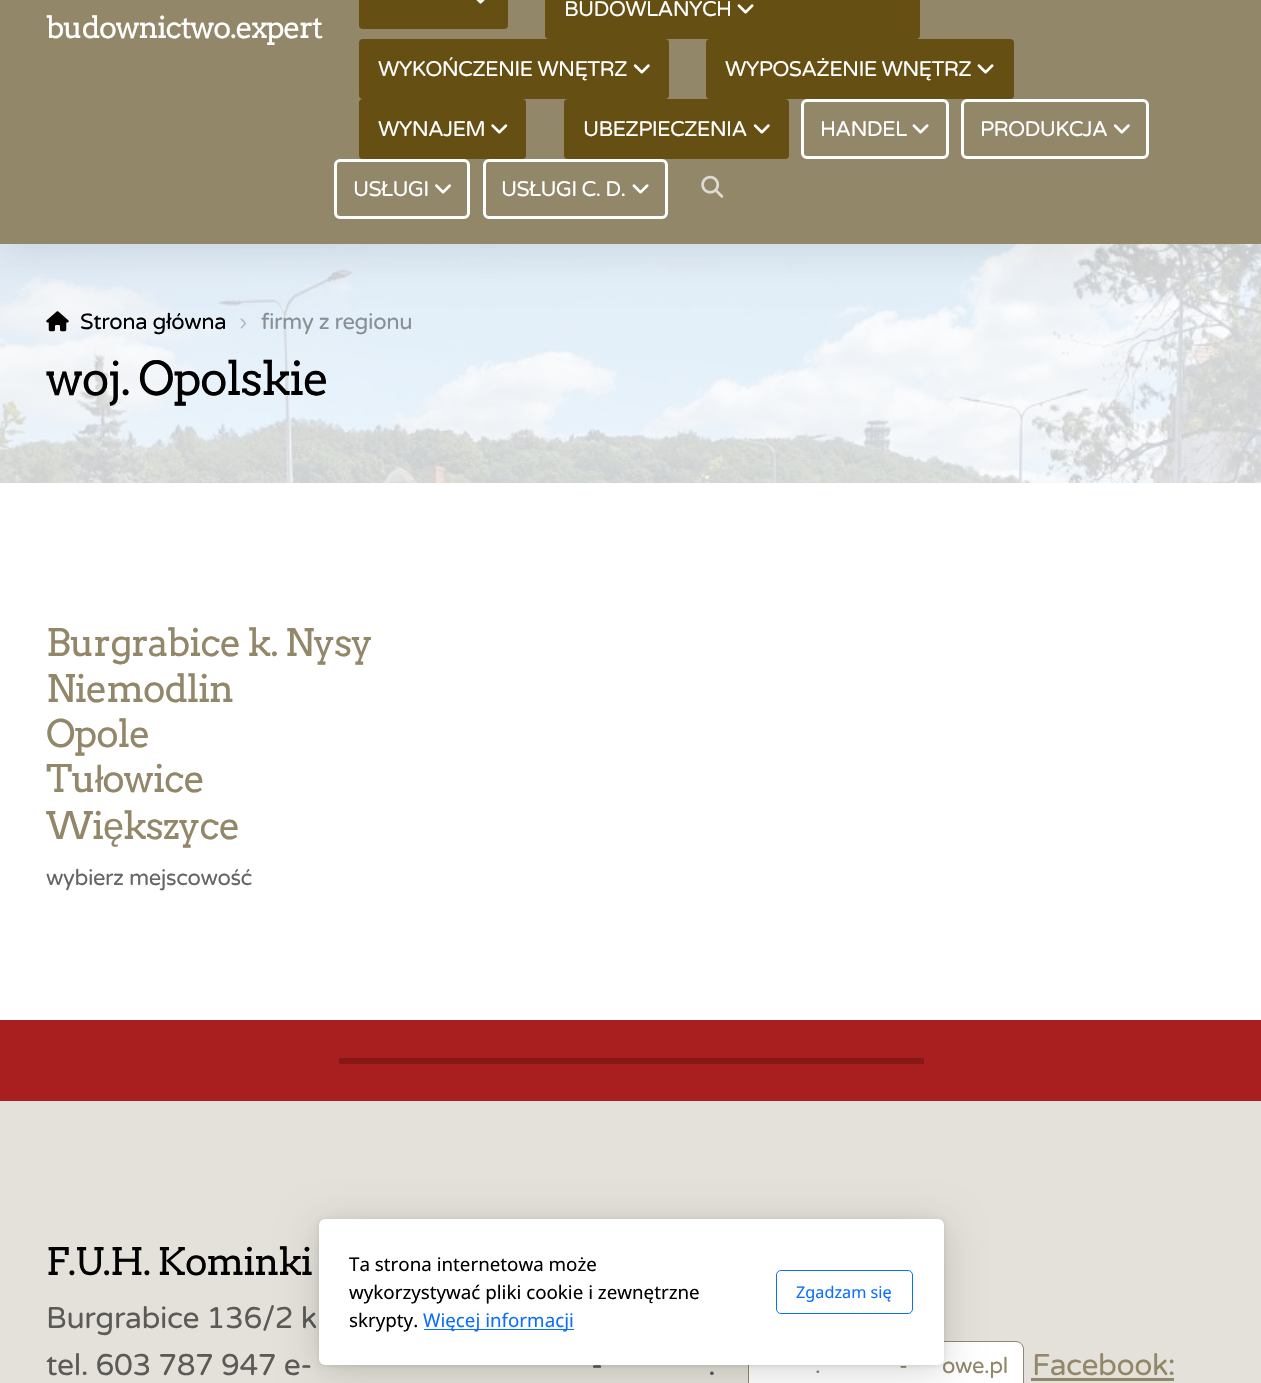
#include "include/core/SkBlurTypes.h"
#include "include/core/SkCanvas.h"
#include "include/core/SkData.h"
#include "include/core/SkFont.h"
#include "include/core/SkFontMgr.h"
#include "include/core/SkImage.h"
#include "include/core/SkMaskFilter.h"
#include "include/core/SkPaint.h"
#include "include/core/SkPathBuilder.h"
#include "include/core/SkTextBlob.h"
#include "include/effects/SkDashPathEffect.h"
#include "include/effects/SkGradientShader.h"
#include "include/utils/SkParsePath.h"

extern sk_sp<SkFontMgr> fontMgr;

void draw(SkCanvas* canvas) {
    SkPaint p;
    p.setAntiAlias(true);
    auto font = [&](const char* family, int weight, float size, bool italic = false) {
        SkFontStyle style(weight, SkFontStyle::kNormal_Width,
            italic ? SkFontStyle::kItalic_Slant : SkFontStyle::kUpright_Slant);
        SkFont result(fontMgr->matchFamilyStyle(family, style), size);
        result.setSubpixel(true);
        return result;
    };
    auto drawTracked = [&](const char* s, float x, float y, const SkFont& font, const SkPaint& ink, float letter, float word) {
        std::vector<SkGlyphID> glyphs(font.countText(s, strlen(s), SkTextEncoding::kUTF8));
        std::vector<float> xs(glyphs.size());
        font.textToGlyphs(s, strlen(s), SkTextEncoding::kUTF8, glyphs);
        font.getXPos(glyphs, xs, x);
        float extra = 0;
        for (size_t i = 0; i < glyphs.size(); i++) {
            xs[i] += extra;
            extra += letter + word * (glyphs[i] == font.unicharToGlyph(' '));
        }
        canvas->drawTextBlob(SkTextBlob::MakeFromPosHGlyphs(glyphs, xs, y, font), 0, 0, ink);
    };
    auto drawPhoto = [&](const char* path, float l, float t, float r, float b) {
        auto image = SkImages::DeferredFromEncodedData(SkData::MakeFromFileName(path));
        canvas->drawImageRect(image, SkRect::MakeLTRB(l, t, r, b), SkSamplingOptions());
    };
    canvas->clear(0xFFFFFFFF);
    drawPhoto("media/9.png", 0, 244, 1261, 483);
    p.setColor(0x17000000);
    p.setMaskFilter(SkMaskFilter::MakeBlur(kNormal_SkBlurStyle, 18));
    canvas->drawRect(SkRect::MakeLTRB(0, -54, 1261, 253), p);
    p.setMaskFilter(nullptr);
    p.setColor(0xFF928769);
    canvas->drawRect(SkRect::MakeLTRB(0, 0, 1261, 244), p);
    auto font1 = font("Arvo", 400, 30);
    p.setColor(0xFFFFFFFF);
    drawTracked("budownictwo.expert", 46, 38, font1, p, -1.25f, 0);
    p.setColor(0xFF654F12);
    canvas->drawRoundRect(SkRect::MakeLTRB(359, -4, 508, 29), 4, 4, p);
    drawPhoto("media/1.png", 476, 0, 485, 4);
    canvas->drawRoundRect(SkRect::MakeLTRB(545, -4, 920, 39), 4, 4, p);
    auto font2 = font("Varela Round", 400, 21.25f);
    p.setColor(0xFFFFFFFF);
    drawTracked("BUDOWLANYCH", 564, 16, font2, p, -0.7f, 0);
    drawPhoto("media/2.png", 737, 4, 754, 14);
    p.setColor(0xFF654F12);
    canvas->drawRoundRect(SkRect::MakeLTRB(359, 39, 669, 99), 4, 4, p);
    p.setColor(0xFFFFFFFF);
    drawTracked("WYKOŃCZENIE WNĘTRZ", 378, 76, font2, p, -0.7f, 0);
    drawPhoto("media/3.png", 633, 64, 650, 74);
    p.setColor(0xFF654F12);
    canvas->drawRoundRect(SkRect::MakeLTRB(706, 39, 1014, 99), 4, 4, p);
    p.setColor(0xFFFFFFFF);
    drawTracked("WYPOSAŻENIE WNĘTRZ", 725, 76, font2, p, -0.7f, 0);
    drawPhoto("media/2.png", 977, 64, 994, 74);
    p.setColor(0xFF654F12);
    canvas->drawRoundRect(SkRect::MakeLTRB(359, 99, 526, 159), 4, 4, p);
    p.setColor(0xFFFFFFFF);
    drawTracked("WYNAJEM", 378, 136, font2, p, -0.7f, 0);
    drawPhoto("media/4.png", 491, 124, 508, 134);
    p.setColor(0xFF654F12);
    canvas->drawRoundRect(SkRect::MakeLTRB(564, 99, 789, 159), 4, 4, p);
    p.setColor(0xFFFFFFFF);
    drawTracked("UBEZPIECZENIA", 583, 136, font2, p, -0.7f, 0);
    drawPhoto("media/3.png", 753, 124, 770, 134);
    p.setStyle(SkPaint::kStroke_Style);
    p.setStrokeWidth(3);
    canvas->drawRoundRect(SkRect::MakeLTRB(802.5f, 100.5f, 947.5f, 157.5f), 4.5f, 4.5f, p);
    p.setStyle(SkPaint::kFill_Style);
    drawTracked("HANDEL", 820, 136, font2, p, -0.7f, 0);
    drawPhoto("media/5.png", 912, 124, 929, 134);
    p.setStyle(SkPaint::kStroke_Style);
    canvas->drawRoundRect(SkRect::MakeLTRB(962.5f, 100.5f, 1147.5f, 157.5f), 4.5f, 4.5f, p);
    p.setStyle(SkPaint::kFill_Style);
    drawTracked("PRODUKCJA", 980, 136, font2, p, -0.7f, 0);
    drawPhoto("media/6.png", 1113, 124, 1130, 134);
    p.setStyle(SkPaint::kStroke_Style);
    canvas->drawRoundRect(SkRect::MakeLTRB(335.5f, 160.5f, 468.5f, 217.5f), 4.5f, 4.5f, p);
    p.setStyle(SkPaint::kFill_Style);
    drawTracked("USŁUGI", 353, 196, font2, p, -0.7f, 0);
    drawPhoto("media/7.png", 435, 184, 451, 194);
    p.setStyle(SkPaint::kStroke_Style);
    canvas->drawRoundRect(SkRect::MakeLTRB(484.5f, 160.5f, 666.5f, 217.5f), 4.5f, 4.5f, p);
    p.setStyle(SkPaint::kFill_Style);
    drawTracked("USŁUGI C. D.", 501, 196, font2, p, -0.7f, 0);
    drawPhoto("media/5.png", 632, 184, 649, 194);
    drawPhoto("media/8.png", 701, 175, 724, 198);
    drawPhoto("media/10.png", 46, 311, 69, 332);
    auto font3 = font("Varela Round", 400, 22);
    p.setColor(0xFF000000);
    drawTracked("Strona główna", 80, 329, font3, p, -0.4f, 0);
    p.setColor(0xFFB6BFC7);
    drawTracked("›", 239, 329, font3, p, -0.4f, 0);
    p.setColor(0xFF888F95);
    drawTracked("firmy z regionu", 261, 329, font3, p, -0.4f, 0);
    auto font4 = font("Arvo", 400, 46.5f);
    p.setColor(0xFF000000);
    drawTracked("woj. Opolskie", 46, 395, font4, p, -1.4f, 0);
    auto font5 = font("Arvo", 400, 37.75f);
    p.setColor(0xFF928769);
    {
        const struct { const char* s; float x, y; } items[] = {
            {"Burgrabice k. Nysy", 46, 656},
            {"Niemodlin", 46, 702},
            {"Opole", 46, 747},
            {"Tu owice", 46, 792},
        };
        for (auto [s, x, y] : items) {
            drawTracked(s, x, y, font5, p, -1.1f, 0);
        }
    }
    auto font6 = font("Liberation Sans", 400, 37.75f);
    drawTracked("ł", 95, 792, font6, p, -1.1f, 0);
    drawTracked("Wi", 46, 839, font5, p, -1.1f, 0);
    drawTracked("ę", 103, 839, font6, p, -1.1f, 0);
    drawTracked("kszyce", 123, 839, font5, p, -1.1f, 0);
    p.setColor(0xFF666666);
    drawTracked("wybierz mejscowość", 46, 885, font3, p, -0.4f, 0);
    {
        const struct { float l, t, r, b; SkColor color; } items[] = {
            {0, 1020, 1261, 1101, 0xFFA91E1E},
            {339, 1058, 924, 1064, 0xFF871818},
            {0, 1101, 1261, 1383, 0xFFE4E1DA},
        };
        for (auto [l, t, r, b, color] : items) {
            p.setColor(color);
            canvas->drawRect(SkRect::MakeLTRB(l, t, r, b), p);
        }
    }
    p.setColor(0xFF000000);
    drawTracked("F.U.H. Kominki", 46, 1275, font5, p, -1.1f, 0);
    auto font7 = font("Varela Round", 400, 30);
    p.setColor(0xFF5B5A57);
    {
        const struct { const char* s; float x, y; } items[] = {
            {"Burgrabice 136/2 k", 46, 1328},
            {"tel. 603 787 947 e-", 46, 1375},
            {"-", 591, 1375},
        };
        for (auto [s, x, y] : items) {
            drawTracked(s, x, y, font7, p, -0.4f, 0);
        }
    }
    p.setColor(0xFFFFFFFF);
    canvas->drawRoundRect(SkRect::MakeLTRB(748.5f, 1341.5f, 1023.5f, 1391.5f), 7.5f, 7.5f, p);
    p.setStyle(SkPaint::kStroke_Style);
    p.setStrokeWidth(1);
    p.setColor(0xFF928769);
    canvas->drawRoundRect(SkRect::MakeLTRB(748.5f, 1341.5f, 1023.5f, 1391.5f), 7.5f, 7.5f, p);
    p.setStyle(SkPaint::kFill_Style);
    {
        const struct { const char* s; float x, y; } items[] = {
            {"-", 899, 1373},
            {"owe.pl", 942, 1373},
            {".", 815, 1373},
        };
        for (auto [s, x, y] : items) {
            drawTracked(s, x, y, font3, p, -0.4f, 0);
        }
    }
    drawTracked("Facebook:", 1032, 1375, font7, p, -0.5f, 0);
    canvas->drawRect(SkRect::MakeLTRB(1031, 1378, 1174, 1381), p);
    p.setColor(0xFF5B5A57);
    drawTracked(".", 708, 1375, font7, p, -0.4f, 0);
    p.setColor(0x29000000);
    p.setMaskFilter(SkMaskFilter::MakeBlur(kNormal_SkBlurStyle, 19));
    canvas->drawRoundRect(SkRect::MakeLTRB(319, 1225, 944, 1371), 6, 6, p);
    p.setMaskFilter(nullptr);
    p.setColor(0x1A000000);
    p.setMaskFilter(SkMaskFilter::MakeBlur(kNormal_SkBlurStyle, 2));
    canvas->drawRoundRect(SkRect::MakeLTRB(319, 1220, 944, 1366), 6, 6, p);
    p.setMaskFilter(nullptr);
    p.setColor(0xFFFFFFFF);
    canvas->drawRoundRect(SkRect::MakeLTRB(319, 1219, 944, 1365), 6, 6, p);
    auto font8 = font("Noto Sans", 400, 18.75f);
    p.setColor(0xFF000000);
    {
        const struct { const char* s; float x, y; } items[] = {
            {"Ta strona internetowa może", 349, 1271},
            {"wykorzystywać pliki cookie i zewnętrzne", 349, 1299},
            {"skrypty.", 349, 1327},
        };
        for (auto [s, x, y] : items) {
            canvas->drawString(s, x, y, font8, p);
        }
    }
    p.setColor(0xFF0D6EFD);
    canvas->drawRect(SkRect::MakeLTRB(424, 1329, 574, 1330), p);
    canvas->drawString("Więcej informacji", 423, 1327, font8, p);
    p.setStyle(SkPaint::kStroke_Style);
    canvas->drawRoundRect(SkRect::MakeLTRB(776.5f, 1270.5f, 912.5f, 1313.5f), 4.5f, 4.5f, p);
    auto font9 = font("Noto Sans", 400, 16.25f);
    p.setStyle(SkPaint::kFill_Style);
    canvas->drawString("Zgadzam się", 796, 1298, font9, p);
}
